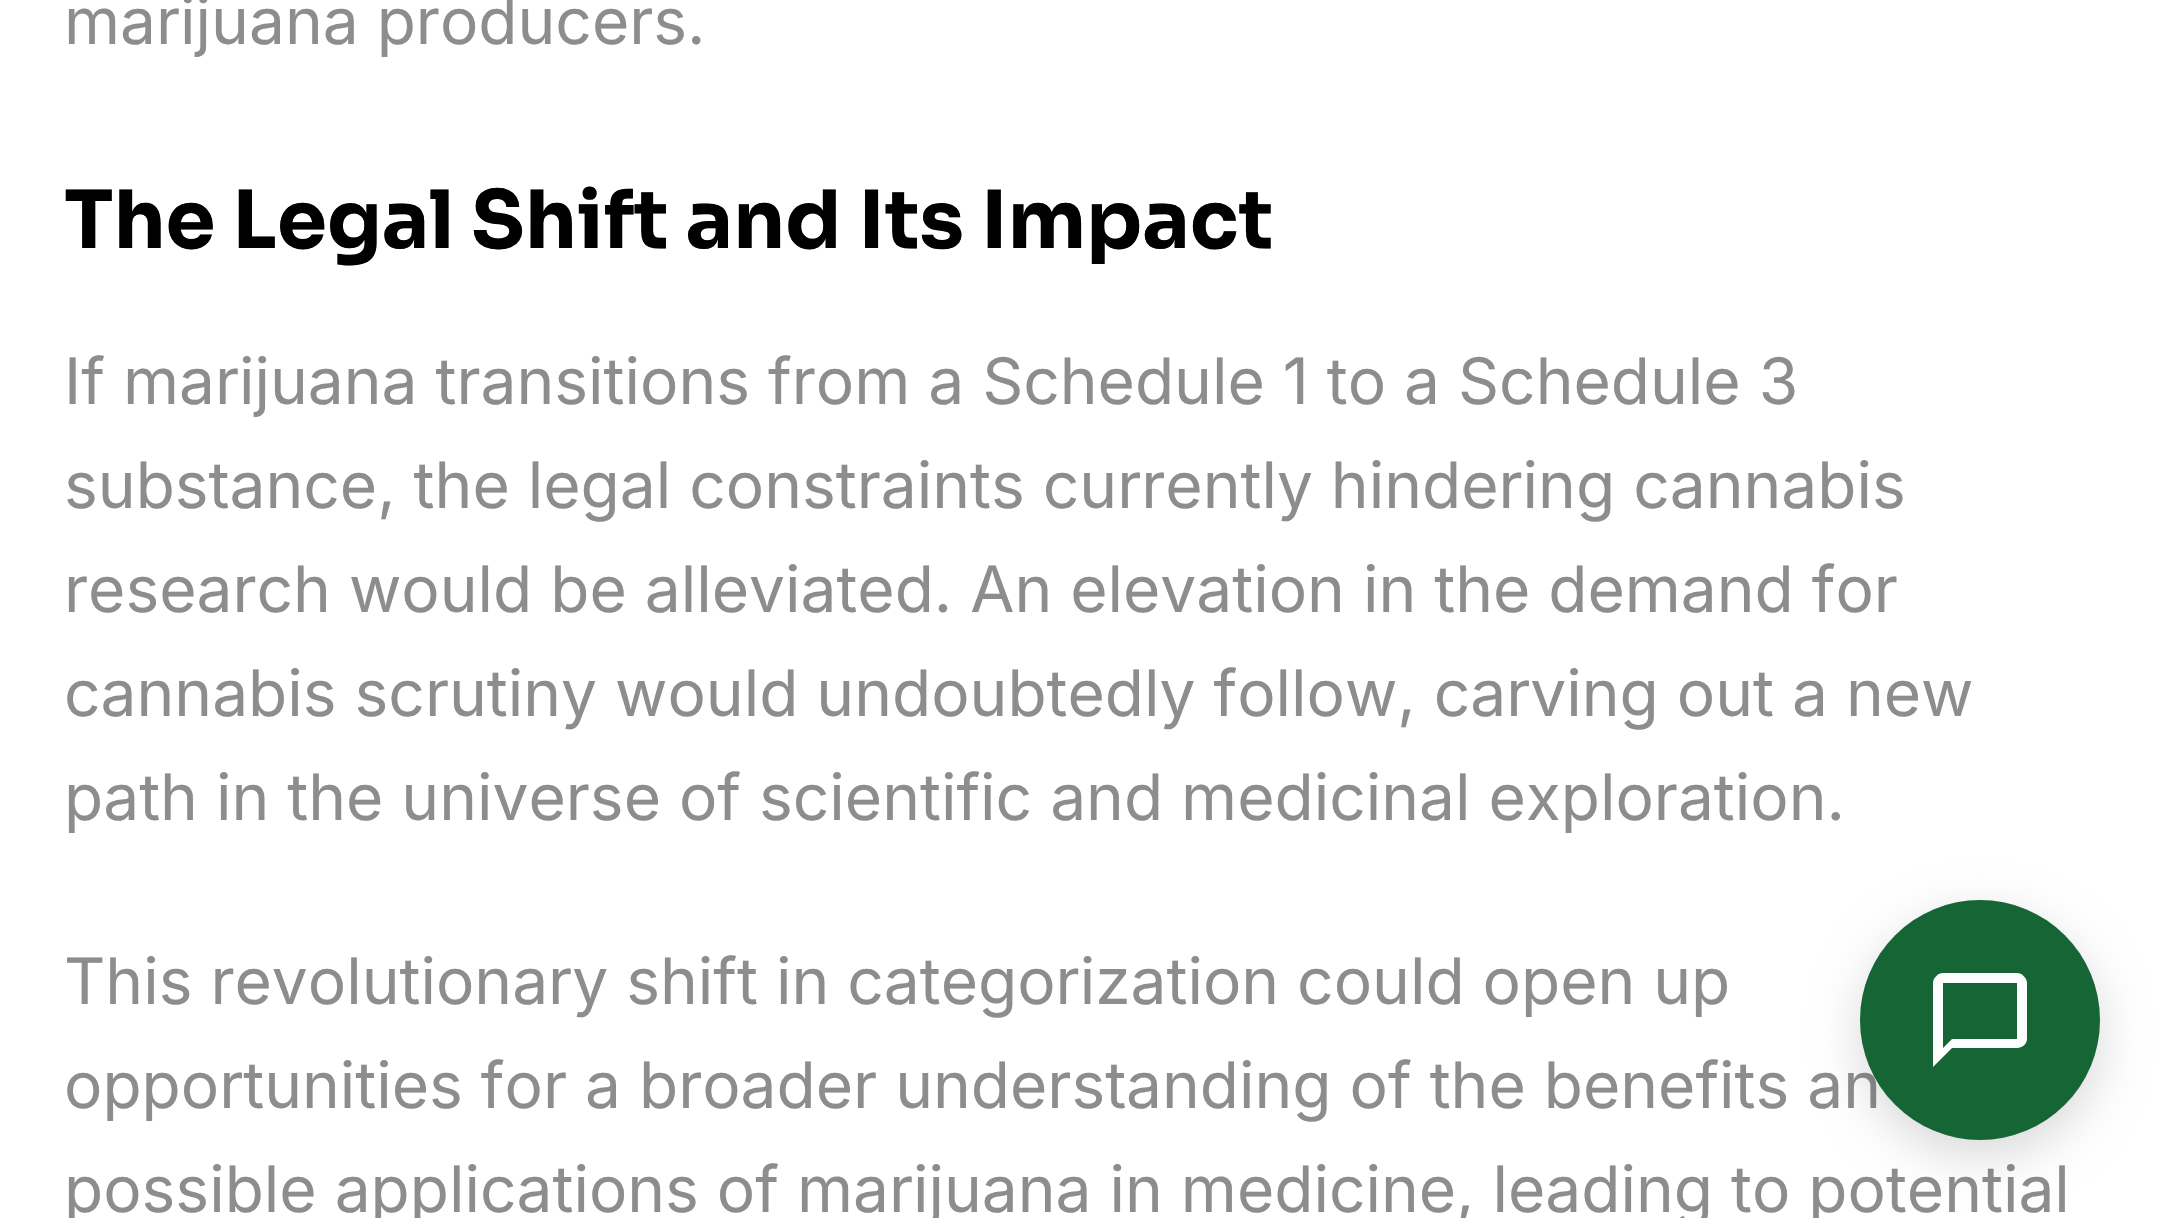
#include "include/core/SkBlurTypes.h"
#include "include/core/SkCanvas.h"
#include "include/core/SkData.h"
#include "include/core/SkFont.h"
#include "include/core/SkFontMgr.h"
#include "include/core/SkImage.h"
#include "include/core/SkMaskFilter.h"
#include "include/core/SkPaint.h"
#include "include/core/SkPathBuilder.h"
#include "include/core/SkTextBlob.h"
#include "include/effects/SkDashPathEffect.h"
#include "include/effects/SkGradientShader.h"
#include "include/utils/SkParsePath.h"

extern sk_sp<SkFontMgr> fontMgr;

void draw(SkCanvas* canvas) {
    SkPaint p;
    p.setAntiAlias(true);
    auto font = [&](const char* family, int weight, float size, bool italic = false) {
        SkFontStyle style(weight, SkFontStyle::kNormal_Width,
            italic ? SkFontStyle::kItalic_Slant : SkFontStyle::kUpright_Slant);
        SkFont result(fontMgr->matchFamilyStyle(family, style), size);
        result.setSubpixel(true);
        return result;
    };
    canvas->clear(0xFFFFFFFF);
    auto font1 = font("Inter", 400, 64);
    p.setColor(0xFF8D8D8D);
    canvas->drawString("marijuana producers.", 64, 44, font1, p);
    auto font2 = font("Sora", 700, 80);
    p.setColor(0xFF000000);
    canvas->drawString("The Legal Shift and Its Impact", 64, 248, font2, p);
    p.setColor(0xFF8D8D8D);
    {
        const struct { const char* s; float x, y; } items[] = {
            {"If marijuana transitions from a Schedule 1 to a Schedule 3", 64, 404},
            {"substance, the legal constraints currently hindering cannabis", 64, 508},
            {"research would be alleviated. An elevation in the demand for", 64, 612},
            {"cannabis scrutiny would undoubtedly follow, carving out a new", 64, 716},
            {"path in the universe of scientific and medicinal exploration.", 64, 820},
            {"This revolutionary shift in categorization could open up", 64, 1004},
            {"opportunities for a broader understanding of the benefits an", 64, 1108},
            {"possible applications of marijuana in medicine, leading to potential", 64, 1212},
        };
        for (auto [s, x, y] : items) {
            canvas->drawString(s, x, y, font1, p);
        }
    }
    p.setColor(0x26000000);
    p.setMaskFilter(SkMaskFilter::MakeBlur(kNormal_SkBlurStyle, 24));
    canvas->drawRoundRect(SkRect::MakeLTRB(1860, 916, 2100, 1156), 120, 120, p);
    p.setMaskFilter(nullptr);
    p.setColor(0xFF166534);
    canvas->drawCircle(1980, 1020, 120, p);
    p.setColor(0xFFFFFFFF);
    canvas->drawPath(SkPathBuilder().moveTo(2017, 973).lineTo(1943, 973).cubicTo(1938, 973, 1933, 978, 1933, 983).lineTo(1933, 1067).lineTo(1952, 1048).lineTo(2017, 1048).cubicTo(2022, 1048, 2027, 1044, 2027, 1039).lineTo(2027, 983).cubicTo(2027, 978, 2022, 973, 2017, 973).close().moveTo(2017, 1039).lineTo(1952, 1039).lineTo(1943, 1048).lineTo(1943, 983).lineTo(2017, 983).close().detach(), p);
}
